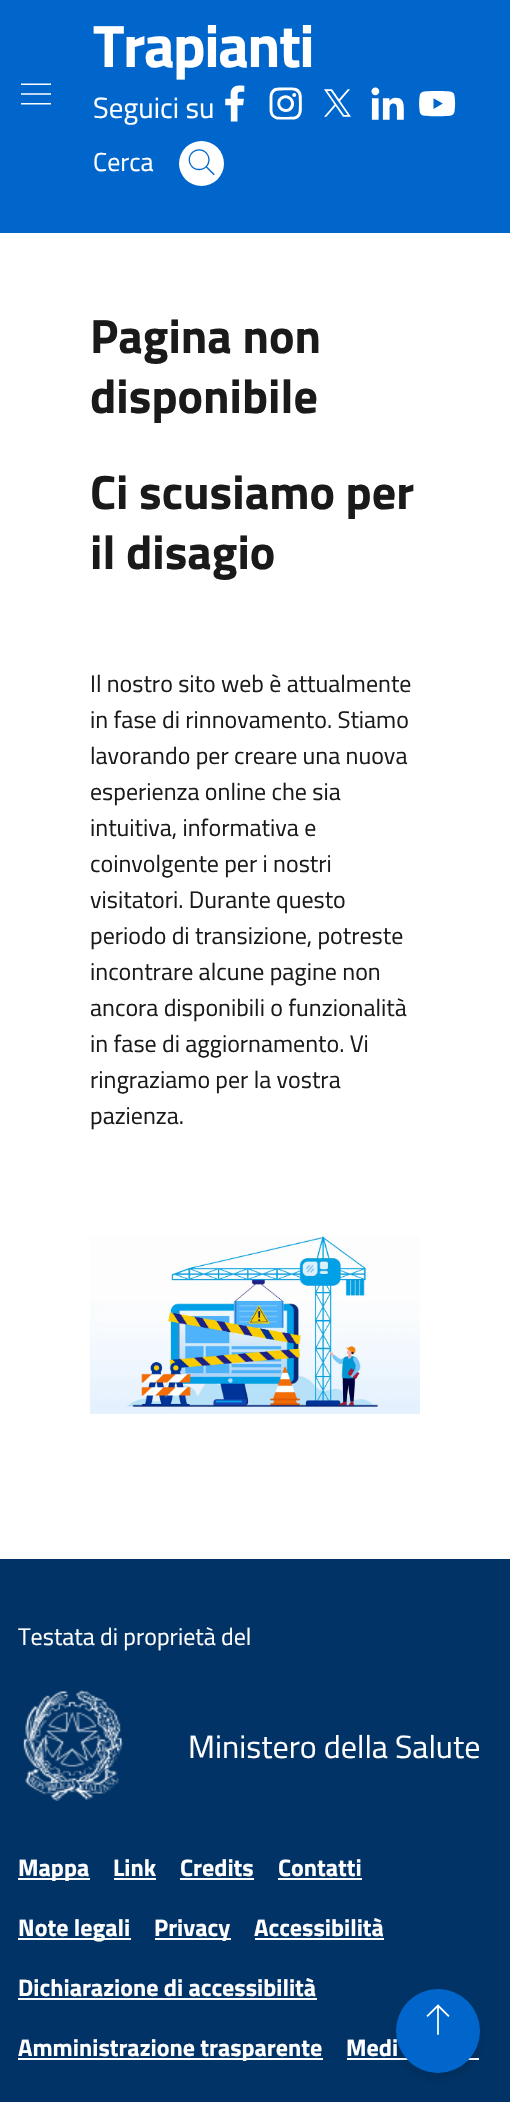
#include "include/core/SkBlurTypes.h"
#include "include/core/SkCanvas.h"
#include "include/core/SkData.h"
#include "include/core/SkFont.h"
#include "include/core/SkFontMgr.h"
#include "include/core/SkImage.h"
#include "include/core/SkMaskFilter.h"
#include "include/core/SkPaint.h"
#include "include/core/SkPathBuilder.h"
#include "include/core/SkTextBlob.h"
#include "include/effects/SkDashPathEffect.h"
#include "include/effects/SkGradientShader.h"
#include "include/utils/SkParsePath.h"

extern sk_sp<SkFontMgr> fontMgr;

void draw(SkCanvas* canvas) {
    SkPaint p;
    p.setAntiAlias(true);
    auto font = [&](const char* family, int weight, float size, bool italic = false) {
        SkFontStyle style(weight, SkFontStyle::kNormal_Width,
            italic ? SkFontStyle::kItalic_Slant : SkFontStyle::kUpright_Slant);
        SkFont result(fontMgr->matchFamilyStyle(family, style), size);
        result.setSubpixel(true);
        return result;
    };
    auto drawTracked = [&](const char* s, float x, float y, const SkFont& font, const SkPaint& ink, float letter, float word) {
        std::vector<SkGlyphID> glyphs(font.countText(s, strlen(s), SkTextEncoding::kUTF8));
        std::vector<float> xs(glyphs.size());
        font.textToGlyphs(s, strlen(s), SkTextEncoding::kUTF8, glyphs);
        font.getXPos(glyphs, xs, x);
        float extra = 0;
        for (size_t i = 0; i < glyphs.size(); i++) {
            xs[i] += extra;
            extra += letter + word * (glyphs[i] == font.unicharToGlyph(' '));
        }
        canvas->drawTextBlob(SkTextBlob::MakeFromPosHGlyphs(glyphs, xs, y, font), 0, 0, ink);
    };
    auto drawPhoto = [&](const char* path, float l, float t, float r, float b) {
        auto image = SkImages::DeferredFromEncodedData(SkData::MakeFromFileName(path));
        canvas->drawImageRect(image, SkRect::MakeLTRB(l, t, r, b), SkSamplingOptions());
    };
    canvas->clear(0xFFFFFFFF);
    p.setColor(0xFF0066CC);
    canvas->drawRect(SkRect::MakeLTRB(0, 0, 510, 233), p);
    drawPhoto("media/1.png", 21, 83, 51, 105);
    auto font1 = font("Titillium Web", 700, 60);
    p.setColor(0xFFFFFFFF);
    drawTracked("Trapianti", 93, 67, font1, p, -1.5f, 0);
    auto font2 = font("Titillium Web", 400, 29);
    canvas->drawString("Seguici su", 93, 118, font2, p);
    drawPhoto("media/2.png", 225, 85, 245, 122);
    drawPhoto("media/3.png", 269, 87, 302, 120);
    drawPhoto("media/4.png", 324, 89, 351, 117);
    drawPhoto("media/5.png", 371, 87, 404, 120);
    drawPhoto("media/6.png", 419, 91, 456, 117);
    auto font3 = font("Titillium Web", 400, 26);
    canvas->drawString("Cerca", 93, 171, font3, p);
    canvas->drawCircle(201.5f, 163.5f, 22.5f, p);
    drawPhoto("media/7.png", 188, 149, 215, 176);
    auto font4 = font("Titillium Web", 700, 48);
    p.setColor(0xFF1A1A1A);
    {
        const struct { const char* s; float x, y; } items[] = {
            {"Pagina non", 90, 353},
            {"disponibile", 90, 413},
            {"Ci scusiamo per", 90, 509},
            {"il disagio", 90, 569},
        };
        for (auto [s, x, y] : items) {
            canvas->drawString(s, x, y, font4, p);
        }
    }
    auto font5 = font("Titillium Web", 400, 24);
    {
        const struct { const char* s; float x, y; } items[] = {
            {"Il nostro sito web è attualmente", 90, 692},
            {"in fase di rinnovamento. Stiamo", 90, 728},
            {"lavorando per creare una nuova", 90, 764},
            {"esperienza online che sia", 90, 800},
            {"intuitiva, informativa e", 90, 836},
            {"coinvolgente per i nostri", 90, 872},
            {"visitatori. Durante questo", 90, 908},
            {"periodo di transizione, potreste", 90, 944},
            {"incontrare alcune pagine non", 90, 980},
            {"ancora disponibili o funzionalità", 90, 1016},
            {"in fase di aggiornamento. Vi", 90, 1052},
            {"ringraziamo per la vostra", 90, 1088},
            {"pazienza.", 90, 1124},
        };
        for (auto [s, x, y] : items) {
            canvas->drawString(s, x, y, font5, p);
        }
    }
    drawPhoto("media/8.png", 90, 1236, 420, 1414);
    p.setColor(0xFF013366);
    canvas->drawRect(SkRect::MakeLTRB(0, 1559, 510, 2102), p);
    p.setColor(0xFFFFFFFF);
    canvas->drawString("Testata di proprietà del", 18, 1645, font5, p);
    drawPhoto("media/9.png", 23, 1690, 124, 1801);
    auto font6 = font("Titillium Web", 400, 32.1f);
    canvas->drawString("Ministero della Salute", 188, 1758, font6, p);
    canvas->drawRect(SkRect::MakeLTRB(18, 1878, 90, 1880), p);
    auto font7 = font("Titillium Web", 700, 24);
    canvas->drawString("Mappa", 18, 1876, font7, p);
    canvas->drawString("Link", 113, 1876, font7, p);
    canvas->drawRect(SkRect::MakeLTRB(114, 1878, 156, 1880), p);
    canvas->drawString("Credits", 180, 1876, font7, p);
    canvas->drawRect(SkRect::MakeLTRB(180, 1878, 254, 1880), p);
    canvas->drawString("Contatti", 278, 1876, font7, p);
    canvas->drawRect(SkRect::MakeLTRB(278, 1878, 362, 1880), p);
    canvas->drawRect(SkRect::MakeLTRB(18, 1938, 131, 1940), p);
    canvas->drawString("Note legali", 18, 1936, font7, p);
    canvas->drawRect(SkRect::MakeLTRB(155, 1938, 231, 1940), p);
    canvas->drawString("Privacy", 154, 1936, font7, p);
    canvas->drawString("Accessibilità", 254, 1936, font7, p);
    canvas->drawRect(SkRect::MakeLTRB(255, 1938, 384, 1940), p);
    canvas->drawString("Dichiarazione di accessibilità", 18, 1996, font7, p);
    canvas->drawRect(SkRect::MakeLTRB(18, 1998, 317, 2000), p);
    canvas->drawRect(SkRect::MakeLTRB(18, 2058, 323, 2060), p);
    canvas->drawString("Amministrazione trasparente", 18, 2056, font7, p);
    canvas->drawString("Medi", 346, 2056, font7, p);
    canvas->drawRect(SkRect::MakeLTRB(347, 2058, 479, 2060), p);
    p.setColor(0x1A000000);
    p.setMaskFilter(SkMaskFilter::MakeBlur(kNormal_SkBlurStyle, 4.5f));
    canvas->drawRoundRect(SkRect::MakeLTRB(396, 1995, 480, 2079), 42, 42, p);
    p.setMaskFilter(nullptr);
    p.setColor(0xFF0066CC);
    canvas->drawCircle(438, 2031, 42, p);
    drawPhoto("media/10.png", 426, 2004, 450, 2035);
}
